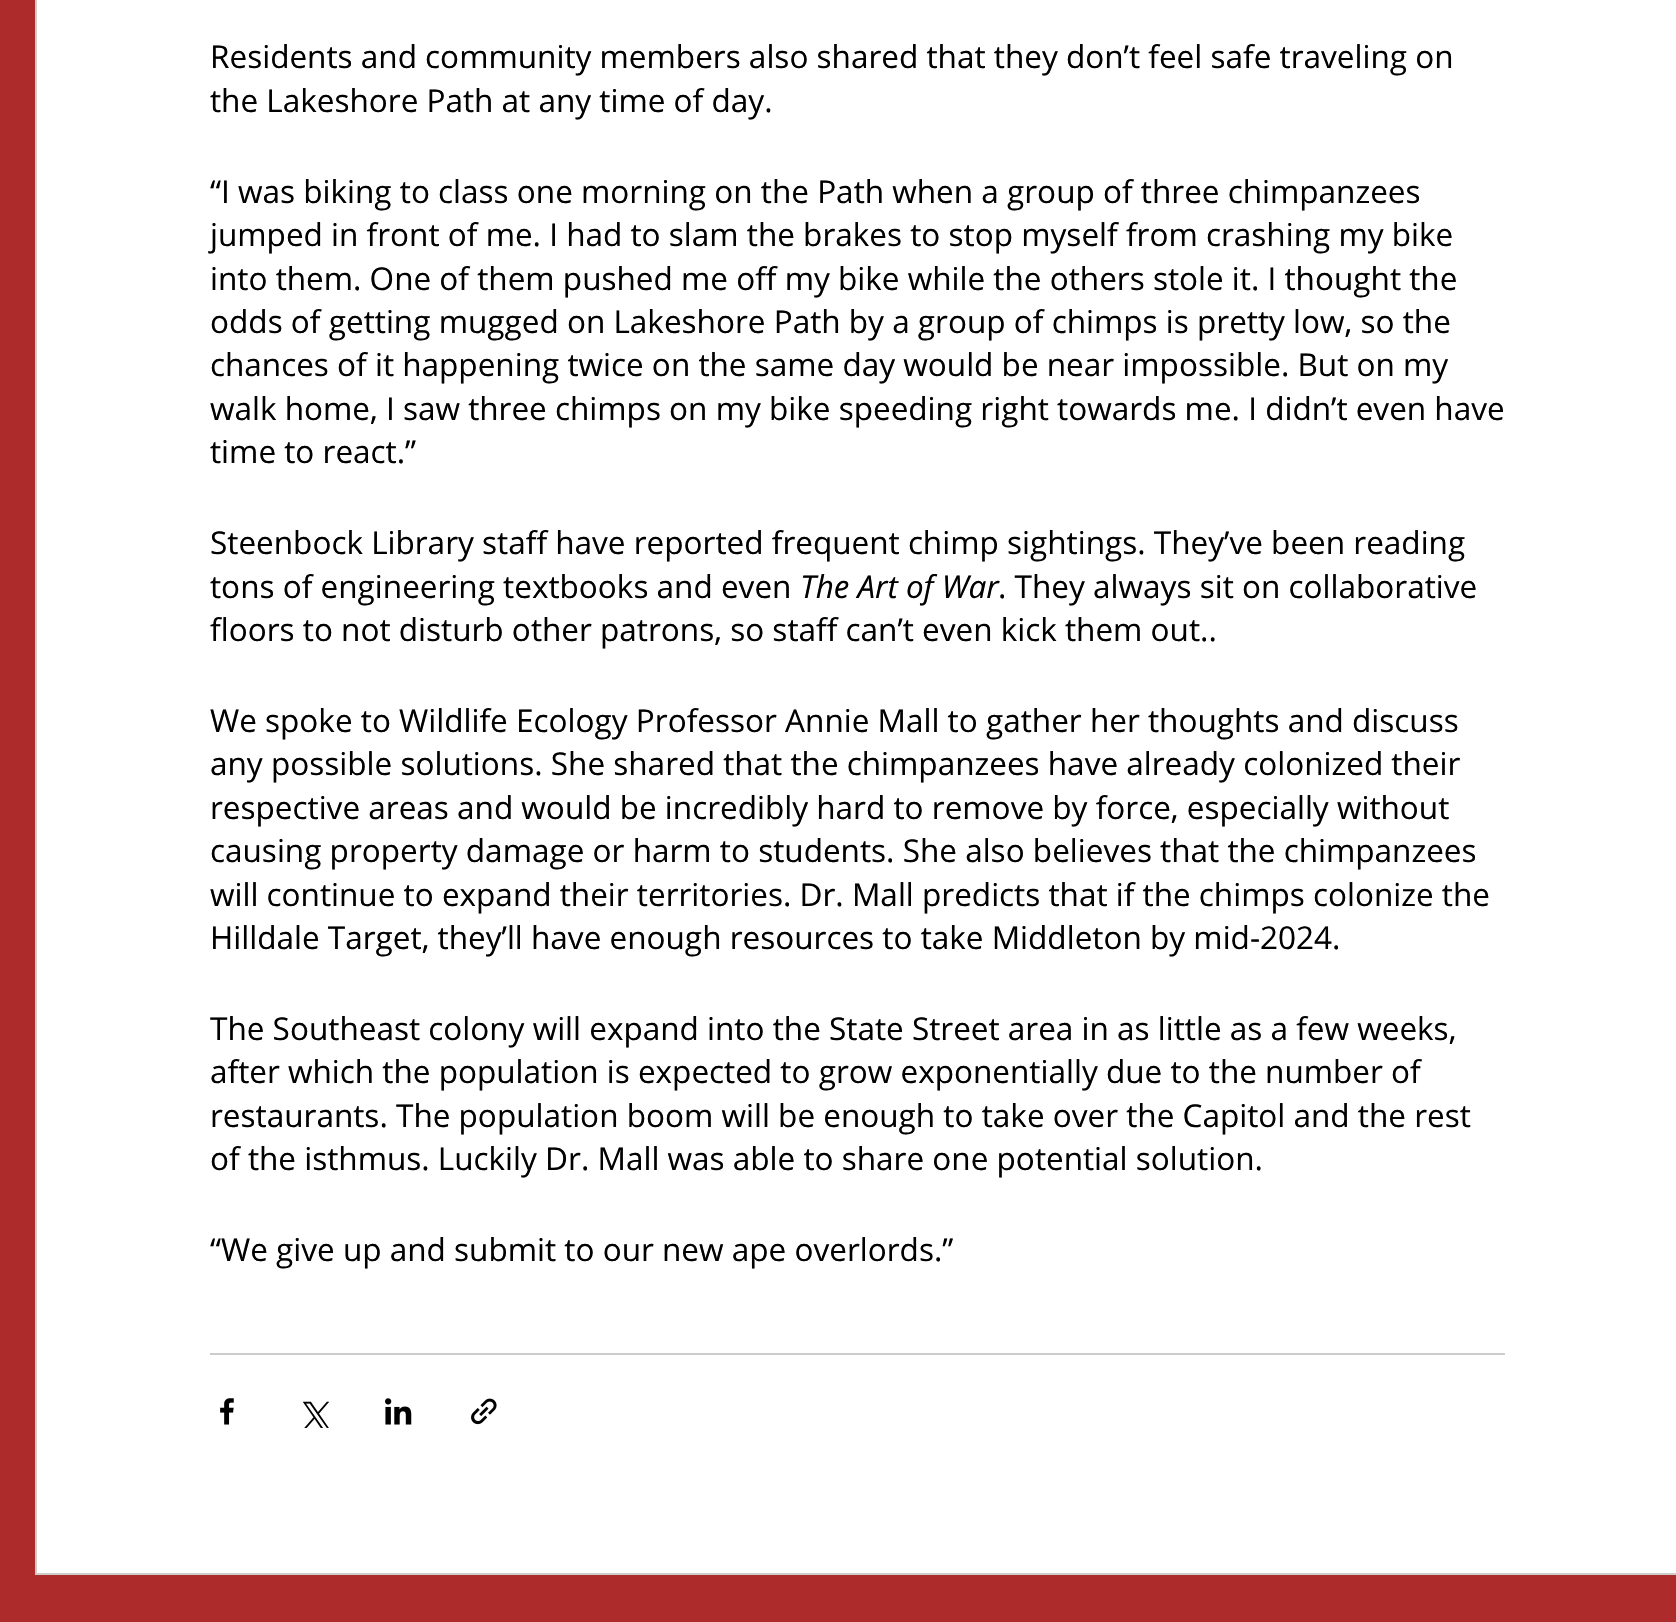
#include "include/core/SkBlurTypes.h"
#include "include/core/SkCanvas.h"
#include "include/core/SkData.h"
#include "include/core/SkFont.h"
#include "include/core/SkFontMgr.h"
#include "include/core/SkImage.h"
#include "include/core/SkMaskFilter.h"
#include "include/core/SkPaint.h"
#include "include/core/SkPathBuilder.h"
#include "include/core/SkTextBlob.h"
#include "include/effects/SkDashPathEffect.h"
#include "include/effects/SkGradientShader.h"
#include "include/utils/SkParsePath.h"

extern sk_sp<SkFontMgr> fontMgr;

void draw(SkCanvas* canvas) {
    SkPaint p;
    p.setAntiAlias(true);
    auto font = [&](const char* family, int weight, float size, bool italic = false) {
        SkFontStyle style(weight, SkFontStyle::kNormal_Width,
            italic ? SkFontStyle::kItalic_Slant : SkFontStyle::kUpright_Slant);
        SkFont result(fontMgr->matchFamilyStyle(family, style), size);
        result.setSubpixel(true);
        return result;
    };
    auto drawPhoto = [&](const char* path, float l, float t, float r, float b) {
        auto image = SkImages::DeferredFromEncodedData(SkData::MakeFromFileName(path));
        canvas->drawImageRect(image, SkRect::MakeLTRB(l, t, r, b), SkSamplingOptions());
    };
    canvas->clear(0xFFAD2B2B);
    p.setColor(0xFFFFFFFF);
    canvas->drawRect(SkRect::MakeLTRB(36, -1, 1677, 1574), p);
    p.setStyle(SkPaint::kStroke_Style);
    p.setStrokeWidth(2);
    p.setColor(0xFFCDCDC9);
    canvas->drawRect(SkRect::MakeLTRB(36, -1, 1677, 1574), p);
    auto font1 = font("Open Sans", 400, 31.5f);
    p.setStyle(SkPaint::kFill_Style);
    p.setColor(0xFF000000);
    {
        const struct { const char* s; float x, y; } items[] = {
            {"Residents and community members also shared that they don’t feel safe traveling on", 210, 68},
            {"the Lakeshore Path at any time of day.", 210, 112},
            {"“I was biking to class one morning on the Path when a group of three chimpanzees", 210, 203},
            {"jumped in front of me. I had to slam the brakes to stop myself from crashing my bike", 210, 246},
            {"into them. One of them pushed me off my bike while the others stole it. I thought the", 210, 290},
            {"odds of getting mugged on Lakeshore Path by a group of chimps is pretty low, so the", 210, 333},
            {"chances of it happening twice on the same day would be near impossible. But on my", 210, 376},
            {"walk home, I saw three chimps on my bike speeding right towards me. I didn’t even have", 210, 420},
            {"time to react.”", 210, 463},
            {"Steenbock Library staff have reported frequent chimp sightings. They’ve been reading", 210, 554},
            {"tons of engineering textbooks and even", 210, 598},
        };
        for (auto [s, x, y] : items) {
            canvas->drawString(s, x, y, font1, p);
        }
    }
    auto font2 = font("Open Sans", 400, 31.5f, true);
    canvas->drawString("The Art of War", 800, 598, font2, p);
    {
        const struct { const char* s; float x, y; } items[] = {
            {". They always sit on collaborative", 998, 598},
            {"floors to not disturb other patrons, so staff can’t even kick them out..", 210, 641},
            {"We spoke to Wildlife Ecology Professor Annie Mall to gather her thoughts and discuss", 210, 732},
            {"any possible solutions. She shared that the chimpanzees have already colonized their", 210, 775},
            {"respective areas and would be incredibly hard to remove by force, especially without", 210, 819},
            {"causing property damage or harm to students. She also believes that the chimpanzees", 210, 862},
            {"will continue to expand their territories. Dr. Mall predicts that if the chimps colonize the", 210, 906},
            {"Hilldale Target, they’ll have enough resources to take Middleton by mid-2024.", 210, 949},
            {"The Southeast colony will expand into the State Street area in as little as a few weeks,", 210, 1040},
            {"after which the population is expected to grow exponentially due to the number of", 210, 1083},
            {"restaurants. The population boom will be enough to take over the Capitol and the rest", 210, 1127},
            {"of the isthmus. Luckily Dr. Mall was able to share one potential solution.", 210, 1170},
            {"“We give up and submit to our new ape overlords.”", 210, 1261},
        };
        for (auto [s, x, y] : items) {
            canvas->drawString(s, x, y, font1, p);
        }
    }
    p.setColor(0xFFCCCCCC);
    canvas->drawRect(SkRect::MakeLTRB(210, 1353, 1505, 1355), p);
    drawPhoto("media/1.png", 220, 1398, 234, 1425);
    drawPhoto("media/2.png", 302, 1401, 329, 1428);
    drawPhoto("media/3.png", 385, 1398, 412, 1425);
    drawPhoto("media/4.png", 471, 1398, 497, 1425);
}
